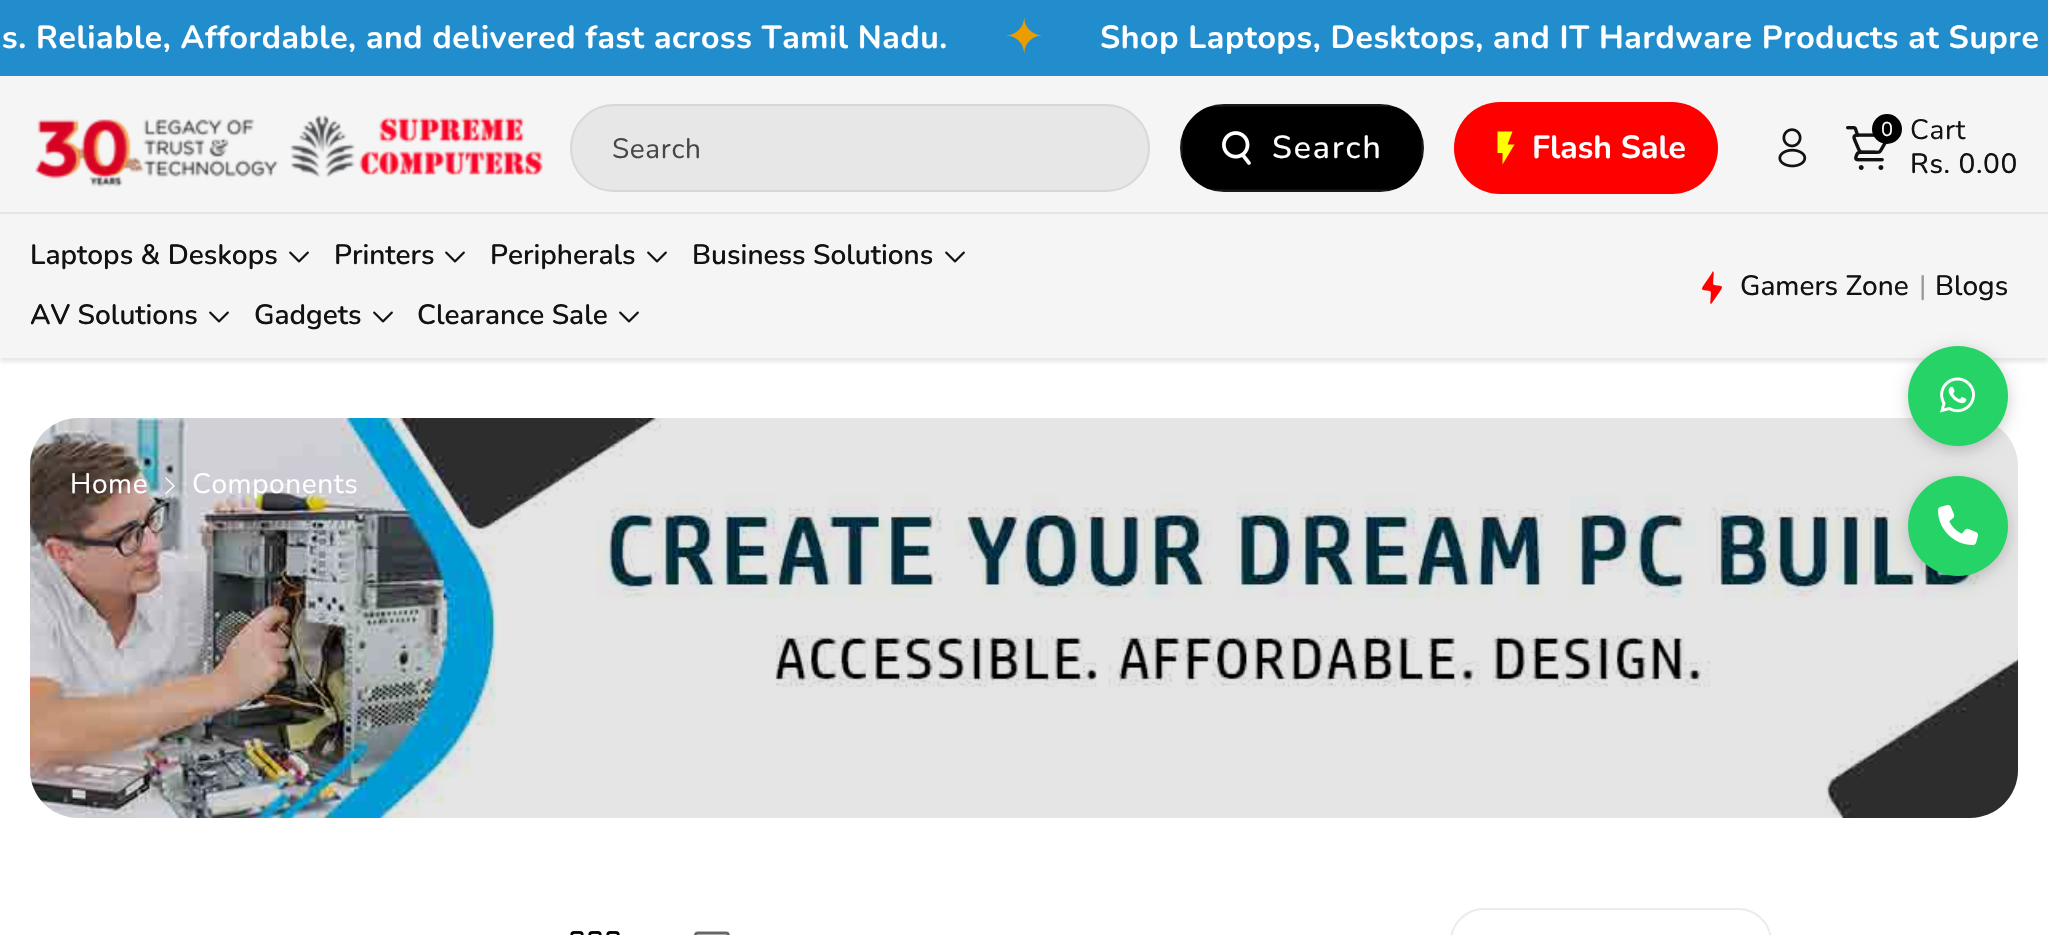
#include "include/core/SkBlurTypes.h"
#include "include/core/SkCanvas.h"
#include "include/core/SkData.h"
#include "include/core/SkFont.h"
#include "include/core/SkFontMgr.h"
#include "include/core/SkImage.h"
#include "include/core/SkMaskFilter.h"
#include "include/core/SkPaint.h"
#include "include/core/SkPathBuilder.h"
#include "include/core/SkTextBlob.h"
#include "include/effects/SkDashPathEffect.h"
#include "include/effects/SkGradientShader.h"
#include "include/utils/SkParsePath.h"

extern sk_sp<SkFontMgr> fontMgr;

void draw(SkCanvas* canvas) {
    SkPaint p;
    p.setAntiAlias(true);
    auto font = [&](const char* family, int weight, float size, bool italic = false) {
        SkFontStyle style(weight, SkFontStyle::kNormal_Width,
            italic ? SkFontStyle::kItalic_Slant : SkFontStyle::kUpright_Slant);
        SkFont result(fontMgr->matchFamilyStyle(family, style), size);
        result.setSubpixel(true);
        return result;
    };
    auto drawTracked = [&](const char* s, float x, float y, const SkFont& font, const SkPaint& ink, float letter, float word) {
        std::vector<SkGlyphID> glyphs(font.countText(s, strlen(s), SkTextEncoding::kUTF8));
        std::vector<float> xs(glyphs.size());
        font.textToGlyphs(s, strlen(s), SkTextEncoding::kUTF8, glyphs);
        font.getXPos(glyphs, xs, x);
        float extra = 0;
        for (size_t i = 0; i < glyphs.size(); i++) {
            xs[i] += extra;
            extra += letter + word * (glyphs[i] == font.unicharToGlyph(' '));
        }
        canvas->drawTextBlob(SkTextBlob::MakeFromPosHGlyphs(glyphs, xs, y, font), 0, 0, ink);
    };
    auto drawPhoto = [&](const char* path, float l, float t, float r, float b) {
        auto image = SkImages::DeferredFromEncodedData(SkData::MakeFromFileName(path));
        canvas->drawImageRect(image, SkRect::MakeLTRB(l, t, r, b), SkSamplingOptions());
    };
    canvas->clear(0xFFFFFFFF);
    p.setColor(0xFF228DCD);
    canvas->drawRect(SkRect::MakeLTRB(0, 0, 2048, 76), p);
    auto font1 = font("Nunito", 700, 32);
    p.setColor(0xFFFFFFFF);
    drawTracked("s. Reliable, Affordable, and delivered fast across Tamil Nadu.", 2, 48, font1, p, 0.6f, 0);
    auto font2 = font("DejaVu Sans", 400, 48);
    p.setColor(0xFFEB9D00);
    drawTracked("✦", 1004, 53, font2, p, 0.6f, 0);
    p.setColor(0xFFFFFFFF);
    drawTracked("Shop Laptops, Desktops, and IT Hardware Products at Supre", 1100, 48, font1, p, 0.6f, 0);
    p.setColor(0x1A121212);
    p.setMaskFilter(SkMaskFilter::MakeBlur(kNormal_SkBlurStyle, 2));
    canvas->drawRect(SkRect::MakeLTRB(0, 80, 2048, 362), p);
    p.setMaskFilter(nullptr);
    p.setColor(0xFFF5F5F5);
    canvas->drawRect(SkRect::MakeLTRB(0, 76, 2048, 358), p);
    drawPhoto("media/1.png", 35, 115, 543, 187);
    p.setColor(0xFFEEEEEE);
    canvas->drawRoundRect(SkRect::MakeLTRB(570, 104, 1150, 192), 44, 44, p);
    p.setColor(0xFFE7E7E7);
    canvas->drawRoundRect(SkRect::MakeLTRB(572, 106, 1148, 190), 42, 42, p);
    p.setStyle(SkPaint::kStroke_Style);
    p.setStrokeWidth(2);
    p.setColor(0x1A121212);
    canvas->drawRoundRect(SkRect::MakeLTRB(571, 105, 1149, 191), 43, 43, p);
    auto font3 = font("Nunito", 400, 28);
    p.setStyle(SkPaint::kFill_Style);
    p.setColor(0xFF474747);
    drawTracked("Search", 612, 158, font3, p, 0.6f, 0);
    p.setColor(0xFF000000);
    canvas->drawRoundRect(SkRect::MakeLTRB(1180, 104, 1424, 192), 44, 44, p);
    drawPhoto("media/2.png", 1222, 131, 1251, 165);
    p.setStyle(SkPaint::kStroke_Style);
    p.setColor(0x0DFFFFFF);
    canvas->drawRect(SkRect::MakeLTRB(1181, 105, 1423, 191), p);
    p.setStrokeWidth(3);
    canvas->drawRect(SkRect::MakeLTRB(1181.5f, 105.5f, 1422.5f, 190.5f), p);
    auto font4 = font("Nunito", 500, 32);
    p.setStyle(SkPaint::kFill_Style);
    p.setColor(0xFFFFFFFF);
    drawTracked("Search", 1272, 158, font4, p, 2, 0);
    p.setColor(0xFFFF0000);
    canvas->drawRoundRect(SkRect::MakeLTRB(1454, 102, 1718, 194), 46, 46, p);
    p.setColor(0xFFFFFF00);
    canvas->drawPath(SkPathBuilder().moveTo(1497.5f, 131.5f).lineTo(1497.5f, 153).lineTo(1502.5f, 153).lineTo(1502.5f, 164.5f).lineTo(1514.5f, 144.5f).lineTo(1507.5f, 144.5f).lineTo(1512.5f, 131.5f).close().detach(), p);
    p.setColor(0xFFFFFFFF);
    canvas->drawString("Flash Sale", 1532, 158, font1, p);
    drawPhoto("media/3.png", 1778, 128, 1807, 168);
    drawPhoto("media/4.png", 1846, 126, 1887, 170);
    p.setColor(0xFF000000);
    canvas->drawCircle(1887, 129, 15, p);
    auto font5 = font("Nunito", 400, 20);
    p.setColor(0xFFFFFFFF);
    drawTracked("0", 1881, 136, font5, p, 0.6f, 0);
    p.setColor(0xFF121212);
    drawTracked("Cart", 1910, 139, font3, p, 0.6f, 0);
    auto font6 = font("Nunito", 500, 28);
    drawTracked("Rs. 0.00", 1910, 173, font6, p, 0.6f, 0);
    p.setColor(0xFFE5E5E5);
    canvas->drawRect(SkRect::MakeLTRB(0, 212, 2048, 214), p);
    auto font7 = font("Nunito", 600, 28);
    p.setColor(0xFF121212);
    canvas->drawString("Laptops & Deskops", 30, 264, font7, p);
    drawPhoto("media/5.png", 289, 251, 309, 263);
    canvas->drawString("Printers", 334, 264, font7, p);
    drawPhoto("media/5.png", 445, 251, 465, 263);
    canvas->drawString("Peripherals", 490, 264, font7, p);
    drawPhoto("media/5.png", 647, 251, 667, 263);
    canvas->drawString("Business Solutions", 692, 264, font7, p);
    drawPhoto("media/5.png", 945, 251, 965, 263);
    canvas->drawString("AV Solutions", 30, 324, font7, p);
    drawPhoto("media/5.png", 209, 311, 229, 323);
    canvas->drawString("Gadgets", 254, 324, font7, p);
    drawPhoto("media/5.png", 373, 311, 393, 323);
    canvas->drawString("Clearance Sale", 417, 324, font7, p);
    drawPhoto("media/5.png", 619, 311, 639, 323);
    drawPhoto("media/6.png", 1702, 271, 1722, 304);
    canvas->drawString("Gamers Zone", 1740, 295, font6, p);
    p.setColor(0xFF9A9A9A);
    drawTracked("|", 1919, 295, font3, p, 0.6f, 0);
    p.setColor(0xFF121212);
    canvas->drawString("Blogs", 1935, 295, font6, p);
    drawPhoto("media/7.png", 30, 418, 2018, 818);
    p.setColor(0x1A000000);
    canvas->drawRoundRect(SkRect::MakeLTRB(30, 418, 2018, 818), 48, 48, p);
    p.setColor(0xFFFFFFFF);
    drawTracked("Home", 70, 493, font3, p, 0.6f, 0);
    canvas->drawPath(SkPathBuilder().moveTo(165, 493.5f).lineTo(166, 494.5f).lineTo(175, 486).lineTo(166, 477).lineTo(165, 478).lineTo(173, 486).close().detach(), p);
    drawTracked("Components", 192, 493, font3, p, 0.6f, 0);
    drawPhoto("media/8.png", 570, 931, 620, 935);
    drawPhoto("media/9.png", 694, 931, 730, 935);
    p.setStyle(SkPaint::kStroke_Style);
    p.setStrokeWidth(2);
    p.setColor(0xFFEBEBEB);
    canvas->drawRoundRect(SkRect::MakeLTRB(1451, 909, 1771, 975), 38, 38, p);
    p.setStyle(SkPaint::kFill_Style);
    p.setColor(0x33000000);
    p.setMaskFilter(SkMaskFilter::MakeBlur(kNormal_SkBlurStyle, 8));
    canvas->drawRoundRect(SkRect::MakeLTRB(1908, 350, 2008, 450), 50, 50, p);
    p.setMaskFilter(nullptr);
    p.setColor(0xFF25D366);
    canvas->drawCircle(1958, 396, 50, p);
    drawPhoto("media/10.png", 1940, 377, 1975, 413);
    p.setColor(0x33000000);
    p.setMaskFilter(SkMaskFilter::MakeBlur(kNormal_SkBlurStyle, 8));
    canvas->drawRoundRect(SkRect::MakeLTRB(1908, 480, 2008, 580), 50, 50, p);
    p.setMaskFilter(nullptr);
    p.setColor(0xFF25D366);
    canvas->drawCircle(1958, 526, 50, p);
    drawPhoto("media/11.png", 1938, 505, 1978, 545);
}
